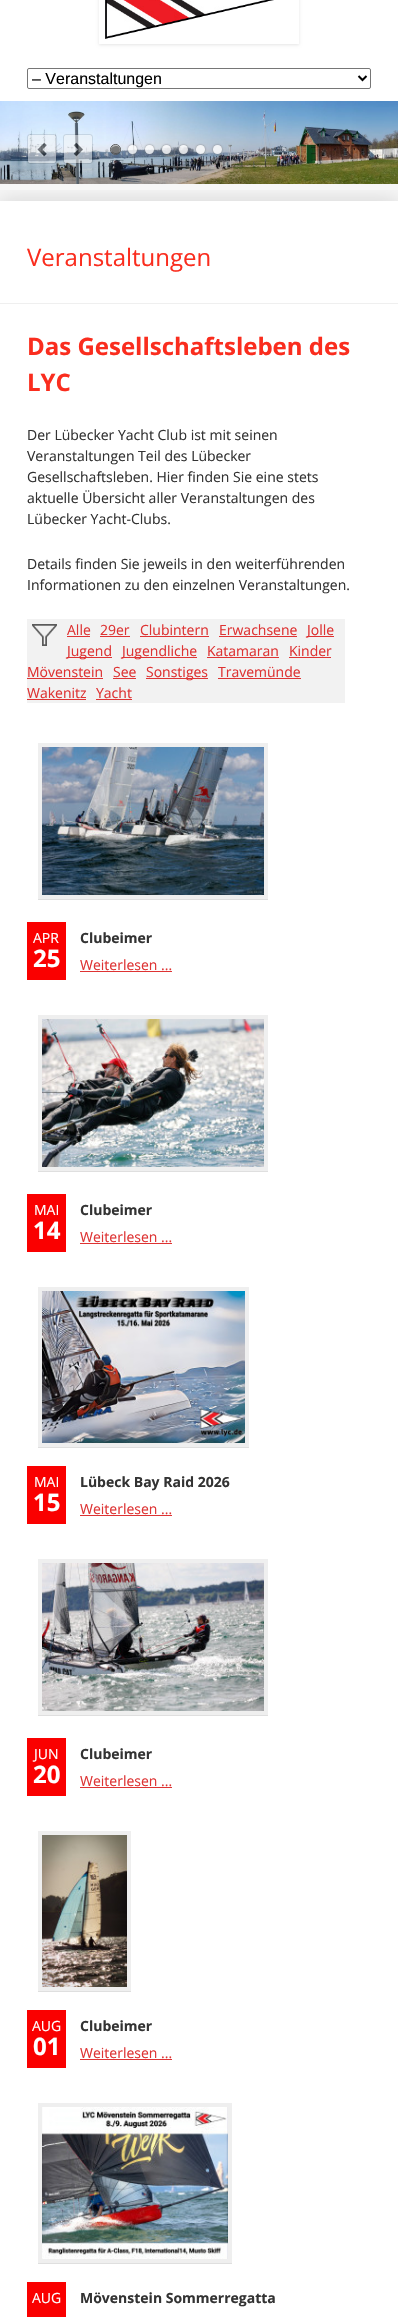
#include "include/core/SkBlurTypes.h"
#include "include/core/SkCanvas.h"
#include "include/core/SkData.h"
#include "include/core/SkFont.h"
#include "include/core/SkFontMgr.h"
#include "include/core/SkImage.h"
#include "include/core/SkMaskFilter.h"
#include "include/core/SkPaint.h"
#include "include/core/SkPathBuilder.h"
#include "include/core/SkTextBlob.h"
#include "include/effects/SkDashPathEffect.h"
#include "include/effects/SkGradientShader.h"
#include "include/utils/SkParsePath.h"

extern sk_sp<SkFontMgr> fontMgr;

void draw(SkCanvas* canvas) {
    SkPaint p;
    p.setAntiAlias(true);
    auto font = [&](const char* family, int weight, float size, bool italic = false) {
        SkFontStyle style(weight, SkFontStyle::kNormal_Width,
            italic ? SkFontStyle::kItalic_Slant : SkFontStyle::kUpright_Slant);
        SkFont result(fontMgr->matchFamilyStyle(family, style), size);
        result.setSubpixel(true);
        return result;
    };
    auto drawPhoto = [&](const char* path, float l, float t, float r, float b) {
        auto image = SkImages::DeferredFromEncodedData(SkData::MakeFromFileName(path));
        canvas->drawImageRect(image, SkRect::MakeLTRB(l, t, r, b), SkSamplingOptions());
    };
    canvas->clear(0xFFFFFFFF);
    canvas->save();
    canvas->clipPath(SkPathBuilder(SkPathFillType::kEvenOdd).moveTo(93, 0).lineTo(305, 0).lineTo(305, 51).lineTo(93, 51).close().moveTo(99, -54).lineTo(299, -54).lineTo(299, 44).lineTo(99, 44).close().detach(), true);
    p.setColor(0x1A000000);
    p.setMaskFilter(SkMaskFilter::MakeBlur(kNormal_SkBlurStyle, 1.5f));
    canvas->drawRect(SkRect::MakeLTRB(99, -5, 299, 45), p);
    p.setMaskFilter(nullptr);
    canvas->restore();
    drawPhoto("media/1.png", 105, 0, 274, 39);
    p.setStyle(SkPaint::kStroke_Style);
    p.setStrokeWidth(1);
    p.setColor(0xFF767676);
    canvas->drawRoundRect(SkRect::MakeLTRB(27.5f, 68.5f, 370.5f, 88.5f), 1.5f, 1.5f, p);
    p.setStrokeWidth(2);
    p.setColor(0xFF000000);
    canvas->drawPath(SkPathBuilder().moveTo(358.5f, 76).lineTo(362.5f, 80).lineTo(366.5f, 76).detach(), p);
    auto font1 = font("Liberation Sans", 400, 16);
    p.setStyle(SkPaint::kFill_Style);
    canvas->drawString("– Veranstaltungen", 32, 84, font1, p);
    p.setColor(0xFFF7F7F7);
    canvas->drawRect(SkRect::MakeLTRB(0, 184, 398, 201), p);
    drawPhoto("media/2.png", 0, 101, 398, 184);
    drawPhoto("media/3.png", 28, 135, 56, 163);
    p.setStyle(SkPaint::kStroke_Style);
    p.setStrokeWidth(1);
    p.setColor(0x1A000000);
    canvas->drawRoundRect(SkRect::MakeLTRB(27.5f, 134.5f, 56.5f, 163.5f), 2.5f, 2.5f, p);
    drawPhoto("media/4.png", 64, 135, 92, 163);
    canvas->drawRoundRect(SkRect::MakeLTRB(63.5f, 134.5f, 92.5f, 163.5f), 2.5f, 2.5f, p);
    p.setColor(0xFF555555);
    canvas->drawCircle(115.5f, 149.5f, 5, p);
    p.setStyle(SkPaint::kFill_Style);
    p.setColor(0xFF777777);
    canvas->drawCircle(115.5f, 149.5f, 4.5f, p);
    p.setColor(0x4D000000);
    canvas->drawPath(SkPathBuilder().moveTo(119.5f, 152).cubicTo(117, 154, 113, 153, 111.5f, 151).cubicTo(112.5f, 154.5f, 117.5f, 155, 119.5f, 152).close().detach(), p);
    p.setColor(0x80FFFFFF);
    canvas->drawPath(SkPathBuilder().moveTo(116, 146).cubicTo(117.5f, 146, 118.5f, 146.5f, 119.5f, 147).cubicTo(117.5f, 144, 112.5f, 144.5f, 111.5f, 148).cubicTo(112.5f, 147, 114, 146, 116, 146).close().detach(), p);
    canvas->save();
    canvas->clipPath(SkPathBuilder(SkPathFillType::kEvenOdd).moveTo(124, 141).lineTo(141, 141).lineTo(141, 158).lineTo(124, 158).close().moveTo(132.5f, 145).cubicTo(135, 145, 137, 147, 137, 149.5f).cubicTo(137, 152, 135, 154, 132.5f, 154).cubicTo(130, 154, 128, 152, 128, 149.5f).cubicTo(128, 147, 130, 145, 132.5f, 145).close().detach(), true);
    p.setColor(0xFF777777);
    p.setMaskFilter(SkMaskFilter::MakeBlur(kNormal_SkBlurStyle, 1));
    canvas->drawRoundRect(SkRect::MakeLTRB(128, 145, 137, 154), 4.5f, 4.5f, p);
    p.setMaskFilter(nullptr);
    canvas->restore();
    p.setColor(0xCCFFFFFF);
    canvas->drawCircle(132.5f, 149.5f, 4.5f, p);
    canvas->save();
    canvas->clipPath(SkPathBuilder(SkPathFillType::kEvenOdd).moveTo(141, 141).lineTo(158, 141).lineTo(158, 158).lineTo(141, 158).close().moveTo(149.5f, 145).cubicTo(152, 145, 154, 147, 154, 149.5f).cubicTo(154, 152, 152, 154, 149.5f, 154).cubicTo(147, 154, 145, 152, 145, 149.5f).cubicTo(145, 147, 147, 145, 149.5f, 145).close().detach(), true);
    p.setColor(0xFF777777);
    p.setMaskFilter(SkMaskFilter::MakeBlur(kNormal_SkBlurStyle, 1));
    canvas->drawRoundRect(SkRect::MakeLTRB(145, 145, 154, 154), 4.5f, 4.5f, p);
    p.setMaskFilter(nullptr);
    canvas->restore();
    p.setColor(0xCCFFFFFF);
    canvas->drawCircle(149.5f, 149.5f, 4.5f, p);
    canvas->save();
    canvas->clipPath(SkPathBuilder(SkPathFillType::kEvenOdd).moveTo(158, 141).lineTo(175, 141).lineTo(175, 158).lineTo(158, 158).close().moveTo(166.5f, 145).cubicTo(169, 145, 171, 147, 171, 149.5f).cubicTo(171, 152, 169, 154, 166.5f, 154).cubicTo(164, 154, 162, 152, 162, 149.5f).cubicTo(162, 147, 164, 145, 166.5f, 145).close().detach(), true);
    p.setColor(0xFF777777);
    p.setMaskFilter(SkMaskFilter::MakeBlur(kNormal_SkBlurStyle, 1));
    canvas->drawRoundRect(SkRect::MakeLTRB(162, 145, 171, 154), 4.5f, 4.5f, p);
    p.setMaskFilter(nullptr);
    canvas->restore();
    p.setColor(0xCCFFFFFF);
    canvas->drawCircle(166.5f, 149.5f, 4.5f, p);
    canvas->save();
    canvas->clipPath(SkPathBuilder(SkPathFillType::kEvenOdd).moveTo(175, 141).lineTo(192, 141).lineTo(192, 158).lineTo(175, 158).close().moveTo(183.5f, 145).cubicTo(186, 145, 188, 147, 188, 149.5f).cubicTo(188, 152, 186, 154, 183.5f, 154).cubicTo(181, 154, 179, 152, 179, 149.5f).cubicTo(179, 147, 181, 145, 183.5f, 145).close().detach(), true);
    p.setColor(0xFF777777);
    p.setMaskFilter(SkMaskFilter::MakeBlur(kNormal_SkBlurStyle, 1));
    canvas->drawRoundRect(SkRect::MakeLTRB(179, 145, 188, 154), 4.5f, 4.5f, p);
    p.setMaskFilter(nullptr);
    canvas->restore();
    p.setColor(0xCCFFFFFF);
    canvas->drawCircle(183.5f, 149.5f, 4.5f, p);
    canvas->save();
    canvas->clipPath(SkPathBuilder(SkPathFillType::kEvenOdd).moveTo(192, 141).lineTo(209, 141).lineTo(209, 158).lineTo(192, 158).close().moveTo(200.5f, 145).cubicTo(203, 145, 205, 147, 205, 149.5f).cubicTo(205, 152, 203, 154, 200.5f, 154).cubicTo(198, 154, 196, 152, 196, 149.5f).cubicTo(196, 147, 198, 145, 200.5f, 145).close().detach(), true);
    p.setColor(0xFF777777);
    p.setMaskFilter(SkMaskFilter::MakeBlur(kNormal_SkBlurStyle, 1));
    canvas->drawRoundRect(SkRect::MakeLTRB(196, 145, 205, 154), 4.5f, 4.5f, p);
    p.setMaskFilter(nullptr);
    canvas->restore();
    p.setColor(0xCCFFFFFF);
    canvas->drawCircle(200.5f, 149.5f, 4.5f, p);
    canvas->save();
    canvas->clipPath(SkPathBuilder(SkPathFillType::kEvenOdd).moveTo(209, 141).lineTo(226, 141).lineTo(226, 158).lineTo(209, 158).close().moveTo(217.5f, 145).cubicTo(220, 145, 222, 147, 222, 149.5f).cubicTo(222, 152, 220, 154, 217.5f, 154).cubicTo(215, 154, 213, 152, 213, 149.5f).cubicTo(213, 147, 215, 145, 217.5f, 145).close().detach(), true);
    p.setColor(0xFF777777);
    p.setMaskFilter(SkMaskFilter::MakeBlur(kNormal_SkBlurStyle, 1));
    canvas->drawRoundRect(SkRect::MakeLTRB(213, 145, 222, 154), 4.5f, 4.5f, p);
    p.setMaskFilter(nullptr);
    canvas->restore();
    p.setColor(0xCCFFFFFF);
    canvas->drawCircle(217.5f, 149.5f, 4.5f, p);
    canvas->save();
    canvas->clipRect(SkRect::MakeLTRB(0, 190, 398, 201));
    p.setColor(0x26000000);
    p.setMaskFilter(SkMaskFilter::MakeBlur(kNormal_SkBlurStyle, 10));
    canvas->drawRect(SkRect::MakeLTRB(0, 201, 398, 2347), p);
    p.setMaskFilter(nullptr);
    canvas->restore();
    p.setColor(0xFFEFEFEF);
    canvas->drawRect(SkRect::MakeLTRB(0, 303, 398, 304), p);
    auto font2 = font("Open Sans", 400, 24);
    p.setColor(0xFFFA2D1E);
    canvas->drawString("Veranstaltungen", 27, 266, font2, p);
    auto font3 = font("Open Sans", 700, 24);
    canvas->drawString("Das Gesellschaftsleben des", 27, 355, font3, p);
    canvas->drawString("LYC", 27, 391, font3, p);
    auto font4 = font("Open Sans", 400, 14);
    p.setColor(0xFF333333);
    {
        const struct { const char* s; float x, y; } items[] = {
            {"Der Lübecker Yacht Club ist mit seinen", 27, 440},
            {"Veranstaltungen Teil des Lübecker", 27, 461},
            {"Gesellschaftsleben. Hier finden Sie eine stets", 27, 482},
            {"aktuelle Übersicht aller Veranstaltungen des", 27, 503},
            {"Lübecker Yacht-Clubs.", 27, 524},
            {"Details finden Sie jeweils in den weiterführenden", 27, 569},
            {"Informationen zu den einzelnen Veranstaltungen.", 27, 590},
        };
        for (auto [s, x, y] : items) {
            canvas->drawString(s, x, y, font4, p);
        }
    }
    p.setColor(0xFFF2F2F2);
    canvas->drawRect(SkRect::MakeLTRB(27, 619, 345, 703), p);
    drawPhoto("media/5.png", 32, 624, 57, 646);
    p.setColor(0xFFDE3333);
    canvas->drawString("Alle", 67, 635, font4, p);
    canvas->drawRect(SkRect::MakeLTRB(67, 636, 90, 637), p);
    canvas->drawString("29er", 100, 635, font4, p);
    canvas->drawRect(SkRect::MakeLTRB(100, 636, 130, 637), p);
    canvas->drawString("Clubintern", 140, 635, font4, p);
    canvas->drawRect(SkRect::MakeLTRB(140, 636, 209, 637), p);
    canvas->drawString("Erwachsene", 219, 635, font4, p);
    canvas->drawRect(SkRect::MakeLTRB(219, 636, 297, 637), p);
    canvas->drawRect(SkRect::MakeLTRB(307, 636, 334, 637), p);
    canvas->drawString("Jolle", 307, 635, font4, p);
    canvas->drawRect(SkRect::MakeLTRB(67, 657, 112, 658), p);
    canvas->drawString("Jugend", 67, 656, font4, p);
    canvas->drawRect(SkRect::MakeLTRB(122, 657, 197, 658), p);
    canvas->drawString("Jugendliche", 122, 656, font4, p);
    canvas->drawString("Katamaran", 207, 656, font4, p);
    canvas->drawRect(SkRect::MakeLTRB(207, 657, 279, 658), p);
    canvas->drawString("Kinder", 289, 656, font4, p);
    canvas->drawRect(SkRect::MakeLTRB(289, 657, 331, 658), p);
    canvas->drawString("Mövenstein", 27, 677, font4, p);
    canvas->drawRect(SkRect::MakeLTRB(27, 678, 103, 679), p);
    canvas->drawString("See", 113, 677, font4, p);
    canvas->drawRect(SkRect::MakeLTRB(113, 678, 136, 679), p);
    canvas->drawRect(SkRect::MakeLTRB(146, 678, 208, 679), p);
    canvas->drawString("Sonstiges", 146, 677, font4, p);
    canvas->drawString("Travemünde", 218, 677, font4, p);
    canvas->drawRect(SkRect::MakeLTRB(218, 678, 301, 679), p);
    canvas->drawString("Wakenitz", 27, 698, font4, p);
    canvas->drawRect(SkRect::MakeLTRB(27, 699, 86, 700), p);
    canvas->drawString("Yacht", 96, 698, font4, p);
    canvas->drawRect(SkRect::MakeLTRB(96, 699, 132, 700), p);
    p.setColor(0xFFDFDFDF);
    canvas->drawRect(SkRect::MakeLTRB(38, 899, 268, 900), p);
    p.setStyle(SkPaint::kStroke_Style);
    p.setStrokeWidth(4);
    p.setColor(0xFFEFEFEF);
    canvas->drawRect(SkRect::MakeLTRB(40, 745, 266, 897), p);
    drawPhoto("media/6.png", 42, 747, 264, 895);
    p.setStyle(SkPaint::kFill_Style);
    p.setColor(0xFFFA0000);
    canvas->drawRect(SkRect::MakeLTRB(27, 922, 66, 980), p);
    p.setColor(0xFFFFFFFF);
    canvas->drawString("APR", 33, 943, font4, p);
    canvas->drawString("25", 33, 967, font3, p);
    auto font5 = font("Open Sans", 700, 14);
    p.setColor(0xFF333333);
    canvas->drawString("Clubeimer", 80, 943, font5, p);
    p.setColor(0xFFDE3333);
    canvas->drawString("Weiterlesen ...", 80, 970, font4, p);
    canvas->drawRect(SkRect::MakeLTRB(80, 971, 172, 972), p);
    p.setColor(0xFFDFDFDF);
    canvas->drawRect(SkRect::MakeLTRB(38, 1171, 268, 1172), p);
    p.setStyle(SkPaint::kStroke_Style);
    p.setColor(0xFFEFEFEF);
    canvas->drawRect(SkRect::MakeLTRB(40, 1017, 266, 1169), p);
    drawPhoto("media/7.png", 42, 1019, 264, 1167);
    p.setStyle(SkPaint::kFill_Style);
    p.setColor(0xFFFA0000);
    canvas->drawRect(SkRect::MakeLTRB(27, 1194, 66, 1252), p);
    p.setColor(0xFFFFFFFF);
    canvas->drawString("MAI", 34, 1215, font4, p);
    canvas->drawString("14", 33, 1239, font3, p);
    p.setColor(0xFF333333);
    canvas->drawString("Clubeimer", 80, 1215, font5, p);
    p.setColor(0xFFDE3333);
    canvas->drawString("Weiterlesen ...", 80, 1242, font4, p);
    canvas->drawRect(SkRect::MakeLTRB(80, 1243, 172, 1244), p);
    p.setColor(0xFFDFDFDF);
    canvas->drawRect(SkRect::MakeLTRB(38, 1447, 249, 1448), p);
    p.setStyle(SkPaint::kStroke_Style);
    p.setColor(0xFFEFEFEF);
    canvas->drawRect(SkRect::MakeLTRB(40, 1289, 247, 1445), p);
    drawPhoto("media/8.png", 42, 1291, 245, 1443);
    p.setStyle(SkPaint::kFill_Style);
    p.setColor(0xFFFA0000);
    canvas->drawRect(SkRect::MakeLTRB(27, 1466, 66, 1524), p);
    p.setColor(0xFFFFFFFF);
    canvas->drawString("MAI", 34, 1487, font4, p);
    canvas->drawString("15", 33, 1511, font3, p);
    p.setColor(0xFF333333);
    canvas->drawString("Lübeck Bay Raid 2026", 80, 1487, font5, p);
    p.setColor(0xFFDE3333);
    canvas->drawString("Weiterlesen ...", 80, 1514, font4, p);
    canvas->drawRect(SkRect::MakeLTRB(80, 1515, 172, 1516), p);
    p.setColor(0xFFDFDFDF);
    canvas->drawRect(SkRect::MakeLTRB(38, 1715, 268, 1716), p);
    p.setStyle(SkPaint::kStroke_Style);
    p.setColor(0xFFEFEFEF);
    canvas->drawRect(SkRect::MakeLTRB(40, 1561, 266, 1713), p);
    drawPhoto("media/9.png", 42, 1563, 264, 1711);
    p.setStyle(SkPaint::kFill_Style);
    p.setColor(0xFFFA0000);
    canvas->drawRect(SkRect::MakeLTRB(27, 1738, 66, 1796), p);
    p.setColor(0xFFFFFFFF);
    canvas->drawString("JUN", 34, 1759, font4, p);
    canvas->drawString("20", 33, 1783, font3, p);
    p.setColor(0xFF333333);
    canvas->drawString("Clubeimer", 80, 1759, font5, p);
    p.setColor(0xFFDE3333);
    canvas->drawString("Weiterlesen ...", 80, 1786, font4, p);
    canvas->drawRect(SkRect::MakeLTRB(80, 1787, 172, 1788), p);
    p.setColor(0xFFDFDFDF);
    canvas->drawRect(SkRect::MakeLTRB(38, 1991, 131, 1992), p);
    p.setStyle(SkPaint::kStroke_Style);
    p.setColor(0xFFEFEFEF);
    canvas->drawRect(SkRect::MakeLTRB(40, 1833, 129, 1989), p);
    drawPhoto("media/10.png", 42, 1835, 127, 1987);
    p.setStyle(SkPaint::kFill_Style);
    p.setColor(0xFFFA0000);
    canvas->drawRect(SkRect::MakeLTRB(27, 2010, 66, 2068), p);
    p.setColor(0xFFFFFFFF);
    canvas->drawString("AUG", 32, 2031, font4, p);
    canvas->drawString("01", 33, 2055, font3, p);
    p.setColor(0xFF333333);
    canvas->drawString("Clubeimer", 80, 2031, font5, p);
    p.setColor(0xFFDE3333);
    canvas->drawString("Weiterlesen ...", 80, 2058, font4, p);
    canvas->drawRect(SkRect::MakeLTRB(80, 2059, 172, 2060), p);
    p.setColor(0xFFDFDFDF);
    canvas->drawRect(SkRect::MakeLTRB(38, 2263, 232, 2264), p);
    p.setStyle(SkPaint::kStroke_Style);
    p.setColor(0xFFEFEFEF);
    canvas->drawRect(SkRect::MakeLTRB(40, 2105, 230, 2261), p);
    drawPhoto("media/11.png", 42, 2107, 228, 2259);
    p.setStyle(SkPaint::kFill_Style);
    p.setColor(0xFFFA0000);
    canvas->drawRect(SkRect::MakeLTRB(27, 2282, 66, 2317), p);
    p.setColor(0xFFFFFFFF);
    canvas->drawString("AUG", 32, 2303, font4, p);
    p.setColor(0xFF333333);
    canvas->drawString("Mövenstein Sommerregatta", 80, 2303, font5, p);
}
